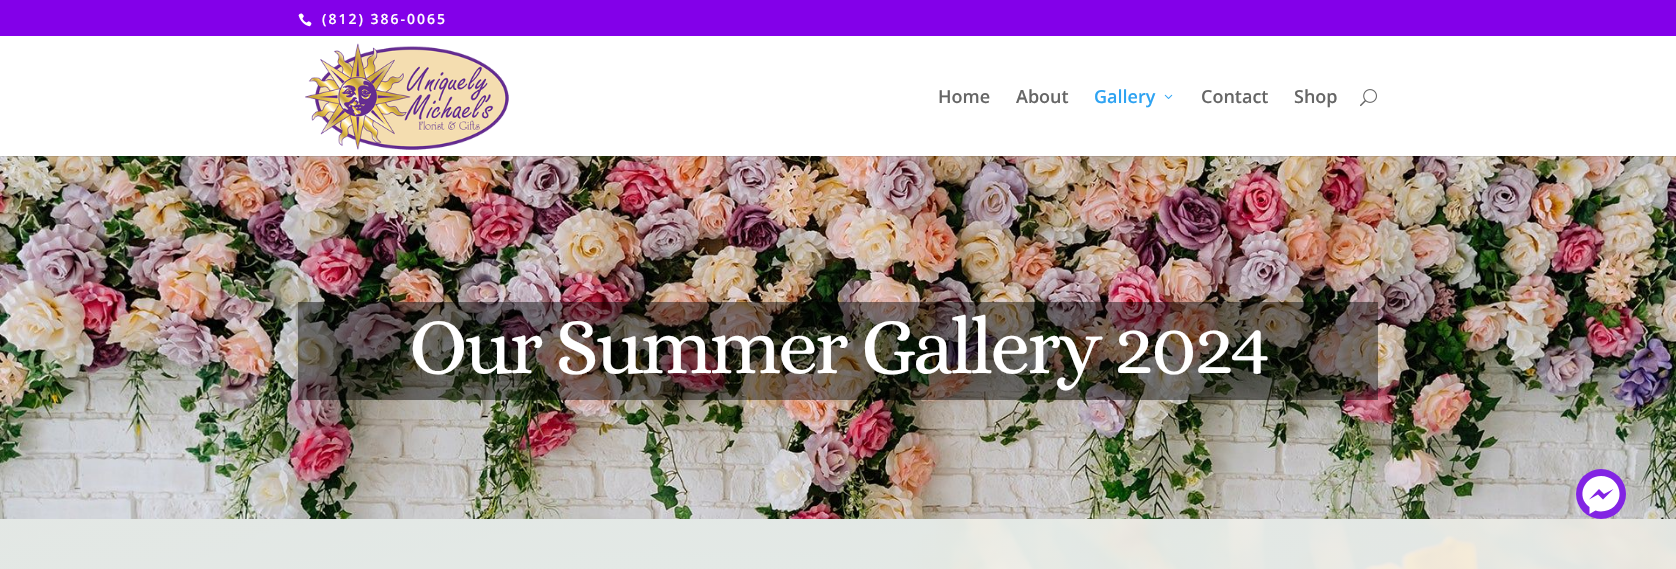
#include "include/core/SkBlurTypes.h"
#include "include/core/SkCanvas.h"
#include "include/core/SkData.h"
#include "include/core/SkFont.h"
#include "include/core/SkFontMgr.h"
#include "include/core/SkImage.h"
#include "include/core/SkMaskFilter.h"
#include "include/core/SkPaint.h"
#include "include/core/SkPathBuilder.h"
#include "include/core/SkTextBlob.h"
#include "include/effects/SkDashPathEffect.h"
#include "include/effects/SkGradientShader.h"
#include "include/utils/SkParsePath.h"

extern sk_sp<SkFontMgr> fontMgr;

void draw(SkCanvas* canvas) {
    SkPaint p;
    p.setAntiAlias(true);
    auto font = [&](const char* family, int weight, float size, bool italic = false) {
        SkFontStyle style(weight, SkFontStyle::kNormal_Width,
            italic ? SkFontStyle::kItalic_Slant : SkFontStyle::kUpright_Slant);
        SkFont result(fontMgr->matchFamilyStyle(family, style), size);
        result.setSubpixel(true);
        return result;
    };
    auto drawTracked = [&](const char* s, float x, float y, const SkFont& font, const SkPaint& ink, float letter, float word) {
        std::vector<SkGlyphID> glyphs(font.countText(s, strlen(s), SkTextEncoding::kUTF8));
        std::vector<float> xs(glyphs.size());
        font.textToGlyphs(s, strlen(s), SkTextEncoding::kUTF8, glyphs);
        font.getXPos(glyphs, xs, x);
        float extra = 0;
        for (size_t i = 0; i < glyphs.size(); i++) {
            xs[i] += extra;
            extra += letter + word * (glyphs[i] == font.unicharToGlyph(' '));
        }
        canvas->drawTextBlob(SkTextBlob::MakeFromPosHGlyphs(glyphs, xs, y, font), 0, 0, ink);
    };
    auto drawPhoto = [&](const char* path, float l, float t, float r, float b) {
        auto image = SkImages::DeferredFromEncodedData(SkData::MakeFromFileName(path));
        canvas->drawImageRect(image, SkRect::MakeLTRB(l, t, r, b), SkSamplingOptions());
    };
    canvas->clear(0xFFFFFFFF);
    p.setColor(0xFF8300E9);
    canvas->drawRect(SkRect::MakeLTRB(0, 0, 1676, 36), p);
    drawPhoto("media/1.png", 298, 13, 312, 27);
    auto font1 = font("Open Sans", 600, 14);
    p.setColor(0xFFFFFFFF);
    drawTracked("(812) 386-0065", 322, 24, font1, p, 2, 0);
    drawPhoto("media/5.png", 0, 156, 1676, 519);
    p.setColor(0x1A000000);
    canvas->drawRect(SkRect::MakeLTRB(0, 156, 1676, 157), p);
    drawPhoto("media/2.png", 305, 43, 509, 150);
    auto font2 = font("Open Sans", 600, 18);
    p.setColor(0xFF666666);
    canvas->drawString("Home", 938, 103, font2, p);
    canvas->drawString("About", 1016, 103, font2, p);
    p.setColor(0xFF2EA3F2);
    canvas->drawString("Gallery", 1094, 103, font2, p);
    drawPhoto("media/3.png", 1164, 94, 1173, 99);
    p.setColor(0xFF666666);
    canvas->drawString("Contact", 1201, 103, font2, p);
    canvas->drawString("Shop", 1294, 103, font2, p);
    drawPhoto("media/4.png", 1360, 89, 1377, 107);
    p.setColor(0x73000000);
    canvas->drawRect(SkRect::MakeLTRB(298, 302, 1378, 400), p);
    auto font3 = font("Alice", 400, 80);
    p.setColor(0xFFFFFFFF);
    drawTracked("Our Summer Gallery 2024", 409, 373, font3, p, -3, 0);
    drawPhoto("media/6.png", 0, 519, 1676, 569);
    p.setColor(0xFF8224E3);
    canvas->drawCircle(1601, 494, 25, p);
    p.setColor(0xFFFFFFFF);
    canvas->drawPath(SkPathBuilder().moveTo(1601, 476).cubicTo(1584, 476, 1575.5f, 497, 1589.5f, 507).lineTo(1589.5f, 514).lineTo(1595.5f, 510.5f).cubicTo(1599.5f, 512, 1604.5f, 511.5f, 1608.5f, 510).cubicTo(1627, 502.5f, 1621, 476, 1601, 476).close().moveTo(1603, 499.5f).lineTo(1598, 494.5f).lineTo(1589, 499.5f).lineTo(1599, 489).lineTo(1604, 494).lineTo(1613.5f, 489).close().detach(), p);
}
